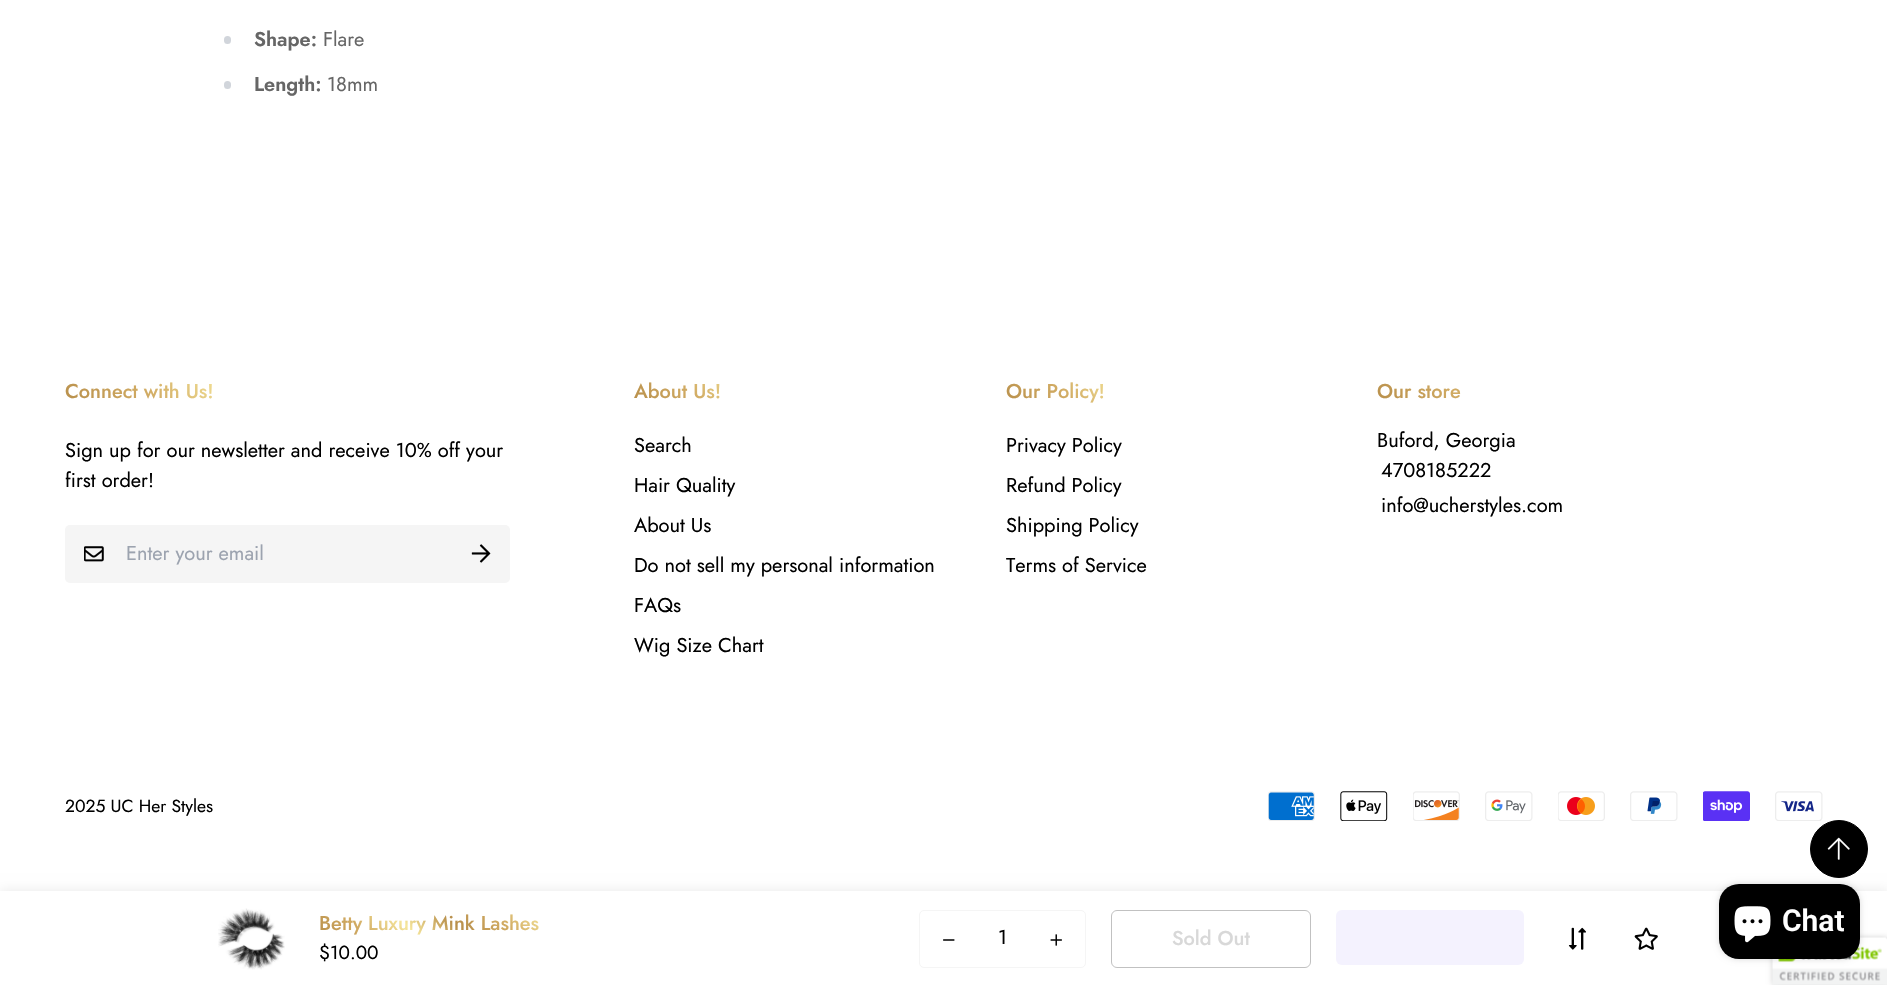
#include "include/core/SkBlurTypes.h"
#include "include/core/SkCanvas.h"
#include "include/core/SkData.h"
#include "include/core/SkFont.h"
#include "include/core/SkFontMgr.h"
#include "include/core/SkImage.h"
#include "include/core/SkMaskFilter.h"
#include "include/core/SkPaint.h"
#include "include/core/SkPathBuilder.h"
#include "include/core/SkTextBlob.h"
#include "include/effects/SkDashPathEffect.h"
#include "include/effects/SkGradientShader.h"
#include "include/utils/SkParsePath.h"

extern sk_sp<SkFontMgr> fontMgr;

void draw(SkCanvas* canvas) {
    SkPaint p;
    p.setAntiAlias(true);
    auto font = [&](const char* family, int weight, float size, bool italic = false) {
        SkFontStyle style(weight, SkFontStyle::kNormal_Width,
            italic ? SkFontStyle::kItalic_Slant : SkFontStyle::kUpright_Slant);
        SkFont result(fontMgr->matchFamilyStyle(family, style), size);
        result.setSubpixel(true);
        return result;
    };
    auto drawPhoto = [&](const char* path, float l, float t, float r, float b) {
        auto image = SkImages::DeferredFromEncodedData(SkData::MakeFromFileName(path));
        canvas->drawImageRect(image, SkRect::MakeLTRB(l, t, r, b), SkSamplingOptions());
    };
    canvas->clear(0xFFFFFFFF);
    p.setColor(0xFFD1D5DB);
    canvas->drawRoundRect(SkRect::MakeLTRB(224, 36, 231, 44), 3.5f, 3.5f, p);
    auto font1 = font("Jost", 600, 20);
    p.setColor(0xFF666666);
    canvas->drawString("Shape:", 254, 46, font1, p);
    auto font2 = font("Jost", 400, 20);
    canvas->drawString("Flare", 323, 46, font2, p);
    p.setColor(0xFFD1D5DB);
    canvas->drawRoundRect(SkRect::MakeLTRB(224, 81, 231, 89), 3.5f, 3.5f, p);
    p.setColor(0xFF666666);
    canvas->drawString("Length:", 254, 91, font1, p);
    canvas->drawString("18mm", 327, 91, font2, p);
    p.setColor(0x17000000);
    p.setMaskFilter(SkMaskFilter::MakeBlur(kNormal_SkBlurStyle, 6));
    canvas->drawRect(SkRect::MakeLTRB(0, 891, 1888, 985), p);
    p.setMaskFilter(nullptr);
    p.setColor(0xFFFFFFFF);
    canvas->drawRect(SkRect::MakeLTRB(0, 891, 1887, 985), p);
    drawPhoto("media/1.png", 218, 908, 285, 970);
    auto font3 = font("Jost", 500, 20);
    {
        const SkColor colors[] = {0xFFB78E4A, 0xFFD1AB63, 0xFFF6E69B, 0xFFB78E4A, 0xFFD1AB63, 0xFFF6E69B};
        const float stops[] = {0, 0.2f, 0.4f, 0.6f, 0.8f, 1};
        const SkPoint ends[] = {{367, 985}, {491, 861}};
        p.setShader(SkGradientShader::MakeLinear(ends, colors, stops, 6, SkTileMode::kClamp));
        p.setAlpha(255);
    }
    canvas->drawString("Betty Luxury Mink Lashes", 319, 930, font3, p);
    auto font4 = font("Jost", 400, 19);
    p.setShader(nullptr);
    p.setColor(0xFF000000);
    canvas->drawString("$10.00", 319, 959, font4, p);
    p.setStyle(SkPaint::kStroke_Style);
    p.setStrokeWidth(1);
    p.setColor(0xFFF5F5F5);
    canvas->drawRoundRect(SkRect::MakeLTRB(919.5f, 910.5f, 1085.5f, 967.5f), 4.5f, 4.5f, p);
    drawPhoto("media/2.png", 943, 939, 955, 941);
    p.setStyle(SkPaint::kFill_Style);
    p.setColor(0xFF000000);
    canvas->drawString("1", 998, 944, font2, p);
    drawPhoto("media/3.png", 1050, 934, 1062, 946);
    p.setStyle(SkPaint::kStroke_Style);
    p.setColor(0xFFC1C1C1);
    canvas->drawRoundRect(SkRect::MakeLTRB(1111.5f, 910.5f, 1310.5f, 967.5f), 5.5f, 5.5f, p);
    p.setStyle(SkPaint::kFill_Style);
    p.setColor(0xFFD8D8D8);
    canvas->drawString("Sold Out", 1172, 945, font3, p);
    p.setColor(0xFFF4F2FE);
    canvas->drawRoundRect(SkRect::MakeLTRB(1336, 910, 1524, 965), 6, 6, p);
    drawPhoto("media/4.png", 1568, 927, 1586, 950);
    drawPhoto("media/5.png", 1634, 927, 1658, 950);
    {
        const SkColor colors[] = {0xFFB78E4A, 0xFFD1AB63, 0xFFF6E69B, 0xFFB78E4A, 0xFFD1AB63, 0xFFF6E69B};
        const float stops[] = {0, 0.2f, 0.4f, 0.6f, 0.8f, 1};
        const SkPoint ends[] = {{169, 510}, {406, 273}};
        p.setShader(SkGradientShader::MakeLinear(ends, colors, stops, 6, SkTileMode::kClamp));
        p.setAlpha(255);
    }
    canvas->drawString("Connect with Us!", 65, 398, font3, p);
    p.setShader(nullptr);
    p.setColor(0xFF000000);
    canvas->drawString("Sign up for our newsletter and receive 10% off your", 65, 457, font2, p);
    canvas->drawString("first order!", 65, 487, font2, p);
    p.setColor(0xFFF5F5F5);
    canvas->drawRoundRect(SkRect::MakeLTRB(65, 525, 510, 583), 5, 5, p);
    drawPhoto("media/6.png", 84, 546, 104, 562);
    p.setColor(0xFF9CA3AF);
    canvas->drawString("Enter your email", 126, 560, font2, p);
    drawPhoto("media/7.png", 471, 544, 491, 563);
    {
        const SkColor colors[] = {0xFFB78E4A, 0xFFD1AB63, 0xFFF6E69B, 0xFFB78E4A, 0xFFD1AB63, 0xFFF6E69B};
        const float stops[] = {0, 0.2f, 0.4f, 0.6f, 0.8f, 1};
        const SkPoint ends[] = {{708, 479}, {883, 304}};
        p.setShader(SkGradientShader::MakeLinear(ends, colors, stops, 6, SkTileMode::kClamp));
        p.setAlpha(255);
    }
    canvas->drawString("About Us!", 634, 398, font3, p);
    p.setShader(nullptr);
    p.setColor(0xFF000000);
    {
        const struct { const char* s; float x, y; } items[] = {
            {"Search", 634, 452},
            {"Hair Quality", 634, 492},
            {"About Us", 634, 532},
            {"Do not sell my personal information", 634, 572},
            {"FAQs", 634, 612},
            {"Wig Size Chart", 634, 652},
        };
        for (auto [s, x, y] : items) {
            canvas->drawString(s, x, y, font2, p);
        }
    }
    {
        const SkColor colors[] = {0xFFB78E4A, 0xFFD1AB63, 0xFFF6E69B, 0xFFB78E4A, 0xFFD1AB63, 0xFFF6E69B};
        const float stops[] = {0, 0.2f, 0.4f, 0.6f, 0.8f, 1};
        const SkPoint ends[] = {{1079, 479}, {1254, 304}};
        p.setShader(SkGradientShader::MakeLinear(ends, colors, stops, 6, SkTileMode::kClamp));
        p.setAlpha(255);
    }
    canvas->drawString("Our Policy!", 1006, 398, font3, p);
    p.setShader(nullptr);
    p.setColor(0xFF000000);
    {
        const struct { const char* s; float x, y; } items[] = {
            {"Privacy Policy", 1006, 452},
            {"Refund Policy", 1006, 492},
            {"Shipping Policy", 1006, 532},
            {"Terms of Service", 1006, 572},
        };
        for (auto [s, x, y] : items) {
            canvas->drawString(s, x, y, font2, p);
        }
    }
    {
        const SkColor colors[] = {0xFFB78E4A, 0xFFD1AB63, 0xFFF6E69B, 0xFFB78E4A, 0xFFD1AB63, 0xFFF6E69B};
        const float stops[] = {0, 0.2f, 0.4f, 0.6f, 0.8f, 1};
        const SkPoint ends[] = {{1481, 510}, {1718, 273}};
        p.setShader(SkGradientShader::MakeLinear(ends, colors, stops, 6, SkTileMode::kClamp));
        p.setAlpha(255);
    }
    canvas->drawString("Our store", 1377, 398, font3, p);
    p.setShader(nullptr);
    p.setColor(0xFF000000);
    {
        const struct { const char* s; float x, y; } items[] = {
            {"Buford, Georgia", 1377, 447},
            {"4708185222", 1381, 477},
            {"info@ucherstyles.com", 1381, 512},
        };
        for (auto [s, x, y] : items) {
            canvas->drawString(s, x, y, font2, p);
        }
    }
    auto font5 = font("Jost", 400, 17.5f);
    canvas->drawString("2025 UC Her Styles", 65, 812, font5, p);
    drawPhoto("media/8.png", 1268, 791, 1315, 821);
    drawPhoto("media/9.png", 1340, 791, 1388, 821);
    drawPhoto("media/10.png", 1413, 791, 1460, 821);
    drawPhoto("media/11.png", 1485, 791, 1533, 821);
    drawPhoto("media/12.png", 1558, 791, 1605, 821);
    drawPhoto("media/13.png", 1630, 791, 1678, 821);
    drawPhoto("media/14.png", 1703, 791, 1750, 821);
    drawPhoto("media/15.png", 1775, 791, 1823, 821);
    canvas->drawCircle(1839, 849, 28.5f, p);
    p.setStyle(SkPaint::kStroke_Style);
    canvas->drawCircle(1839, 849, 28.5f, p);
    drawPhoto("media/16.png", 1827, 837, 1850, 860);
    p.setStyle(SkPaint::kFill_Style);
    p.setColor(0x33000000);
    p.setMaskFilter(SkMaskFilter::MakeBlur(kNormal_SkBlurStyle, 3));
    canvas->drawRoundRect(SkRect::MakeLTRB(1773, 938, 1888, 985), 2.5f, 2.5f, p);
    p.setMaskFilter(nullptr);
    drawPhoto("media/18.png", 1772, 937, 1887, 985);
    p.setColor(0x26000000);
    p.setMaskFilter(SkMaskFilter::MakeBlur(kNormal_SkBlurStyle, 3));
    canvas->drawRoundRect(SkRect::MakeLTRB(1719, 884, 1860, 959), 20, 20, p);
    p.setMaskFilter(nullptr);
    p.setColor(0xFF000000);
    canvas->drawRoundRect(SkRect::MakeLTRB(1719, 884, 1860, 959), 20, 20, p);
    drawPhoto("media/17.png", 1734, 906, 1771, 943);
    auto font6 = font("Roboto", 600, 30);
    p.setColor(0xFFFFFFFF);
    canvas->drawString("Chat", 1782, 931, font6, p);
}
